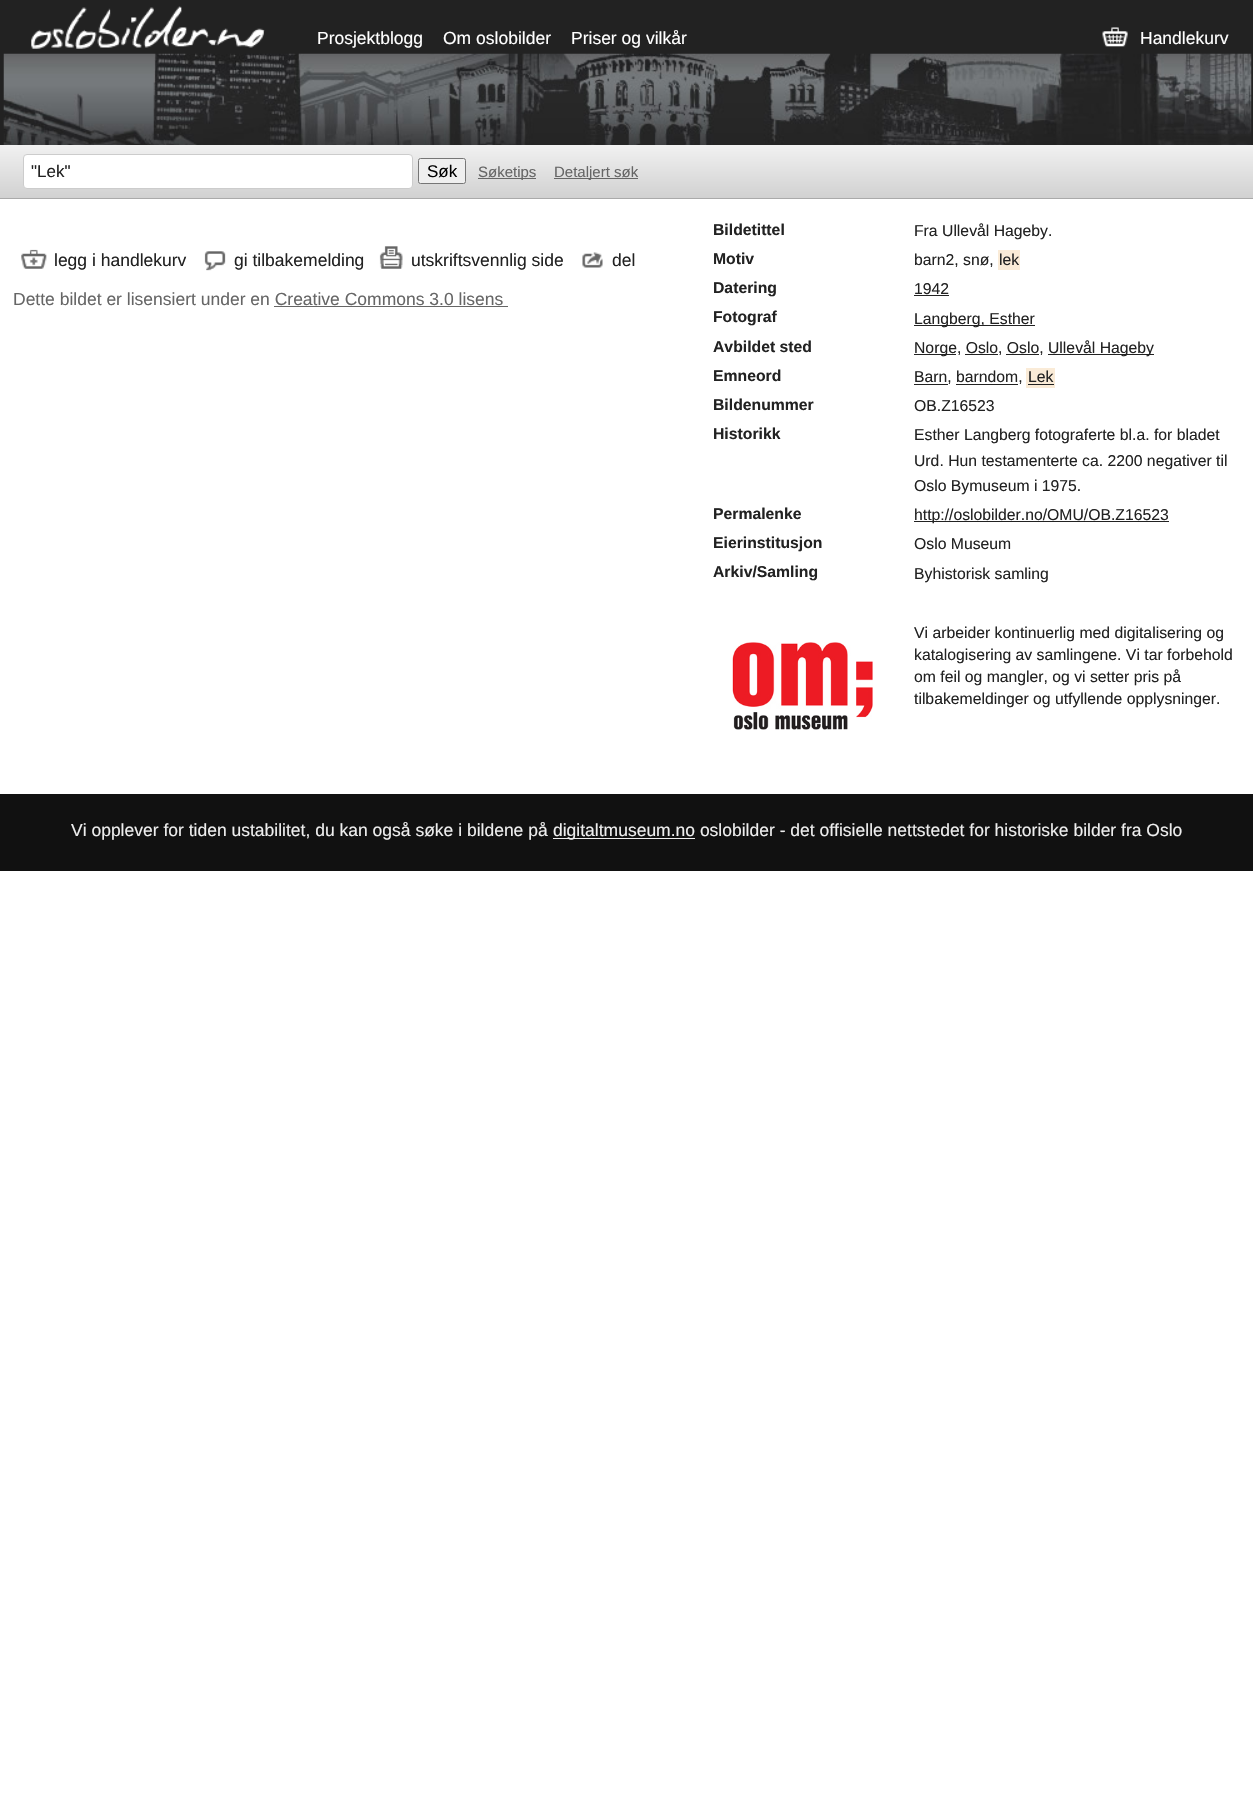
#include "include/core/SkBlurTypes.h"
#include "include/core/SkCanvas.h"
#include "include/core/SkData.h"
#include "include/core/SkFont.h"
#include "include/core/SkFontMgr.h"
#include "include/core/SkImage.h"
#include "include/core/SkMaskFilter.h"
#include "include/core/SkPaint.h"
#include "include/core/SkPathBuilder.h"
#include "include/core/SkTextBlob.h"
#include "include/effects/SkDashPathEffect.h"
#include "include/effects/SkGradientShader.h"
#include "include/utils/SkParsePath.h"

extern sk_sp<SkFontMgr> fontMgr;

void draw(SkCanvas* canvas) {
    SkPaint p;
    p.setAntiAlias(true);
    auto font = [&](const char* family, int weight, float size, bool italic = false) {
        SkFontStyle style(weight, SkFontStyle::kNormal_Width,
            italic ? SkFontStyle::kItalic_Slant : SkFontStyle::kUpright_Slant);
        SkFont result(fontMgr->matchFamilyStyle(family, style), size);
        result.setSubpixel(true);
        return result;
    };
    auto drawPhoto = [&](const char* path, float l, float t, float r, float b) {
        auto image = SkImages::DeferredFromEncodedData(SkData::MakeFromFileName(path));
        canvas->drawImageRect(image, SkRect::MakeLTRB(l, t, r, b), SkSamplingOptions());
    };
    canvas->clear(0xFFFFFFFF);
    p.setColor(0xFF222222);
    canvas->drawRect(SkRect::MakeLTRB(0, 0, 1253, 145), p);
    drawPhoto("media/1.png", 3, 53, 1252, 145);
    drawPhoto("media/2.png", 31, 6, 265, 49);
    auto font1 = font("Liberation Sans", 400, 17.5f);
    p.setColor(0xFFFFFFFF);
    {
        const struct { const char* s; float x, y; } items[] = {
            {"Prosjektblogg", 317, 44},
            {"Om oslobilder", 443, 44},
            {"Priser og vilkår", 571, 44},
        };
        for (auto [s, x, y] : items) {
            canvas->drawString(s, x, y, font1, p);
        }
    }
    drawPhoto("media/3.png", 1102, 27, 1128, 47);
    canvas->drawString("Handlekurv", 1140, 44, font1, p);
    {
        const SkColor colors[] = {0xFFF1F1F1, 0xFFD1D1D1};
        const float stops[] = {0, 1};
        const SkPoint ends[] = {{627, 145}, {627, 198}};
        p.setShader(SkGradientShader::MakeLinear(ends, colors, stops, 2, SkTileMode::kClamp));
        p.setAlpha(255);
    }
    canvas->drawRect(SkRect::MakeLTRB(0, 145, 1253, 198), p);
    p.setShader(nullptr);
    p.setColor(0xFFAAAAAA);
    canvas->drawRect(SkRect::MakeLTRB(0, 198, 1253, 199), p);
    p.setColor(0xFFFFFFFF);
    canvas->drawRoundRect(SkRect::MakeLTRB(23.5f, 154.5f, 412.5f, 188.5f), 3.5f, 3.5f, p);
    p.setStyle(SkPaint::kStroke_Style);
    p.setStrokeWidth(1);
    p.setColor(0xFFCCCCCC);
    canvas->drawRoundRect(SkRect::MakeLTRB(23.5f, 154.5f, 412.5f, 188.5f), 3.5f, 3.5f, p);
    auto font2 = font("Liberation Sans", 400, 17);
    p.setStyle(SkPaint::kFill_Style);
    p.setColor(0xFF222222);
    canvas->drawString("\"Lek\"", 31, 177, font2, p);
    p.setColor(0xFFEFEFEF);
    canvas->drawRoundRect(SkRect::MakeLTRB(418.5f, 158.5f, 465.5f, 183.5f), 2, 2, p);
    p.setStyle(SkPaint::kStroke_Style);
    p.setColor(0xFF767676);
    canvas->drawRoundRect(SkRect::MakeLTRB(418.5f, 158.5f, 465.5f, 183.5f), 2, 2, p);
    p.setStyle(SkPaint::kFill_Style);
    p.setColor(0xFF000000);
    canvas->drawString("Søk", 427, 177, font2, p);
    p.setColor(0xFF666666);
    canvas->drawRect(SkRect::MakeLTRB(478, 178, 536, 179), p);
    auto font3 = font("Liberation Sans", 400, 15);
    canvas->drawString("Søketips", 478, 177, font3, p);
    canvas->drawRect(SkRect::MakeLTRB(554, 178, 638, 179), p);
    canvas->drawString("Detaljert søk", 554, 177, font3, p);
    drawPhoto("media/4.png", 21, 249, 47, 269);
    p.setColor(0xFF222222);
    canvas->drawString("legg i handlekurv", 54, 266, font1, p);
    drawPhoto("media/5.png", 204, 251, 226, 271);
    canvas->drawString("gi tilbakemelding", 234, 266, font1, p);
    drawPhoto("media/6.png", 379, 246, 403, 269);
    canvas->drawString("utskriftsvennlig side", 411, 266, font1, p);
    drawPhoto("media/7.png", 582, 252, 603, 268);
    canvas->drawString("del", 612, 266, font1, p);
    p.setColor(0xFF666666);
    canvas->drawString("Dette bildet er lisensiert under en Creative Commons 3.0 lisens", 13, 305, font1, p);
    canvas->drawRect(SkRect::MakeLTRB(274, 306, 508, 307), p);
    auto font4 = font("Liberation Sans", 700, 15.75f);
    p.setColor(0xFF222222);
    canvas->drawString("Bildetittel", 713, 235, font4, p);
    auto font5 = font("Liberation Sans", 400, 15.75f);
    canvas->drawString("Fra Ullevål Hageby.", 914, 236, font5, p);
    canvas->drawString("Motiv", 713, 264, font4, p);
    canvas->drawString("barn2, snø,", 914, 265, font5, p);
    p.setColor(0xFFFAEBD7);
    canvas->drawRect(SkRect::MakeLTRB(998, 250, 1020, 270), p);
    p.setColor(0xFF222222);
    canvas->drawString("lek", 999, 265, font5, p);
    canvas->drawString("Datering", 713, 293, font4, p);
    canvas->drawString("1942", 914, 294, font5, p);
    canvas->drawRect(SkRect::MakeLTRB(914, 295, 949, 296), p);
    canvas->drawString("Fotograf", 713, 322, font4, p);
    canvas->drawRect(SkRect::MakeLTRB(914, 325, 1035, 326), p);
    canvas->drawString("Langberg, Esther", 914, 324, font5, p);
    canvas->drawString("Avbildet sted", 713, 352, font4, p);
    canvas->drawRect(SkRect::MakeLTRB(914, 354, 956, 355), p);
    canvas->drawString("Norge, Oslo, Oslo,", 914, 353, font5, p);
    canvas->drawRect(SkRect::MakeLTRB(1048, 354, 1154, 355), p);
    canvas->drawString("Ullevål Hageby", 1048, 353, font5, p);
    canvas->drawRect(SkRect::MakeLTRB(965, 354, 998, 355), p);
    canvas->drawRect(SkRect::MakeLTRB(1006, 354, 1039, 355), p);
    canvas->drawString("Emneord", 713, 381, font4, p);
    canvas->drawString("Barn, barndom,", 914, 382, font5, p);
    canvas->drawRect(SkRect::MakeLTRB(914, 384, 948, 385), p);
    p.setColor(0xFFFAEBD7);
    canvas->drawRect(SkRect::MakeLTRB(1026, 368, 1055, 388), p);
    p.setColor(0xFF222222);
    canvas->drawString("Lek", 1028, 382, font5, p);
    canvas->drawRect(SkRect::MakeLTRB(1028, 384, 1054, 385), p);
    canvas->drawRect(SkRect::MakeLTRB(956, 384, 1018, 385), p);
    canvas->drawString("Bildenummer", 713, 410, font4, p);
    canvas->drawString("OB.Z16523", 914, 411, font5, p);
    canvas->drawString("Historikk", 713, 439, font4, p);
    {
        const struct { const char* s; float x, y; } items[] = {
            {"Esther Langberg fotograferte bl.a. for bladet", 914, 440},
            {"Urd. Hun testamenterte ca. 2200 negativer til", 914, 466},
            {"Oslo Bymuseum i 1975.", 914, 491},
        };
        for (auto [s, x, y] : items) {
            canvas->drawString(s, x, y, font5, p);
        }
    }
    canvas->drawString("Permalenke", 713, 519, font4, p);
    canvas->drawRect(SkRect::MakeLTRB(914, 521, 1169, 522), p);
    canvas->drawString("http://oslobilder.no/OMU/OB.Z16523", 914, 520, font5, p);
    canvas->drawString("Eierinstitusjon", 713, 548, font4, p);
    canvas->drawString("Oslo Museum", 914, 549, font5, p);
    canvas->drawString("Arkiv/Samling", 713, 577, font4, p);
    canvas->drawString("Byhistorisk samling", 914, 579, font5, p);
    drawPhoto("media/8.png", 732, 642, 873, 730);
    {
        const struct { const char* s; float x, y; } items[] = {
            {"Vi arbeider kontinuerlig med digitalisering og", 914, 638},
            {"katalogisering av samlingene. Vi tar forbehold", 914, 660},
            {"om feil og mangler, og vi setter pris på", 914, 682},
            {"tilbakemeldinger og utfyllende opplysninger.", 914, 704},
        };
        for (auto [s, x, y] : items) {
            canvas->drawString(s, x, y, font5, p);
        }
    }
    p.setColor(0xFF111111);
    canvas->drawRect(SkRect::MakeLTRB(0, 794, 1253, 871), p);
    p.setColor(0xFFEEEEEE);
    canvas->drawString("Vi opplever for tiden ustabilitet, du kan også søke i bildene på", 71, 836, font1, p);
    canvas->drawRect(SkRect::MakeLTRB(553, 838, 695, 839), p);
    canvas->drawString("digitaltmuseum.no oslobilder - det offisielle nettstedet for historiske bilder fra Oslo", 553, 836, font1, p);
}
